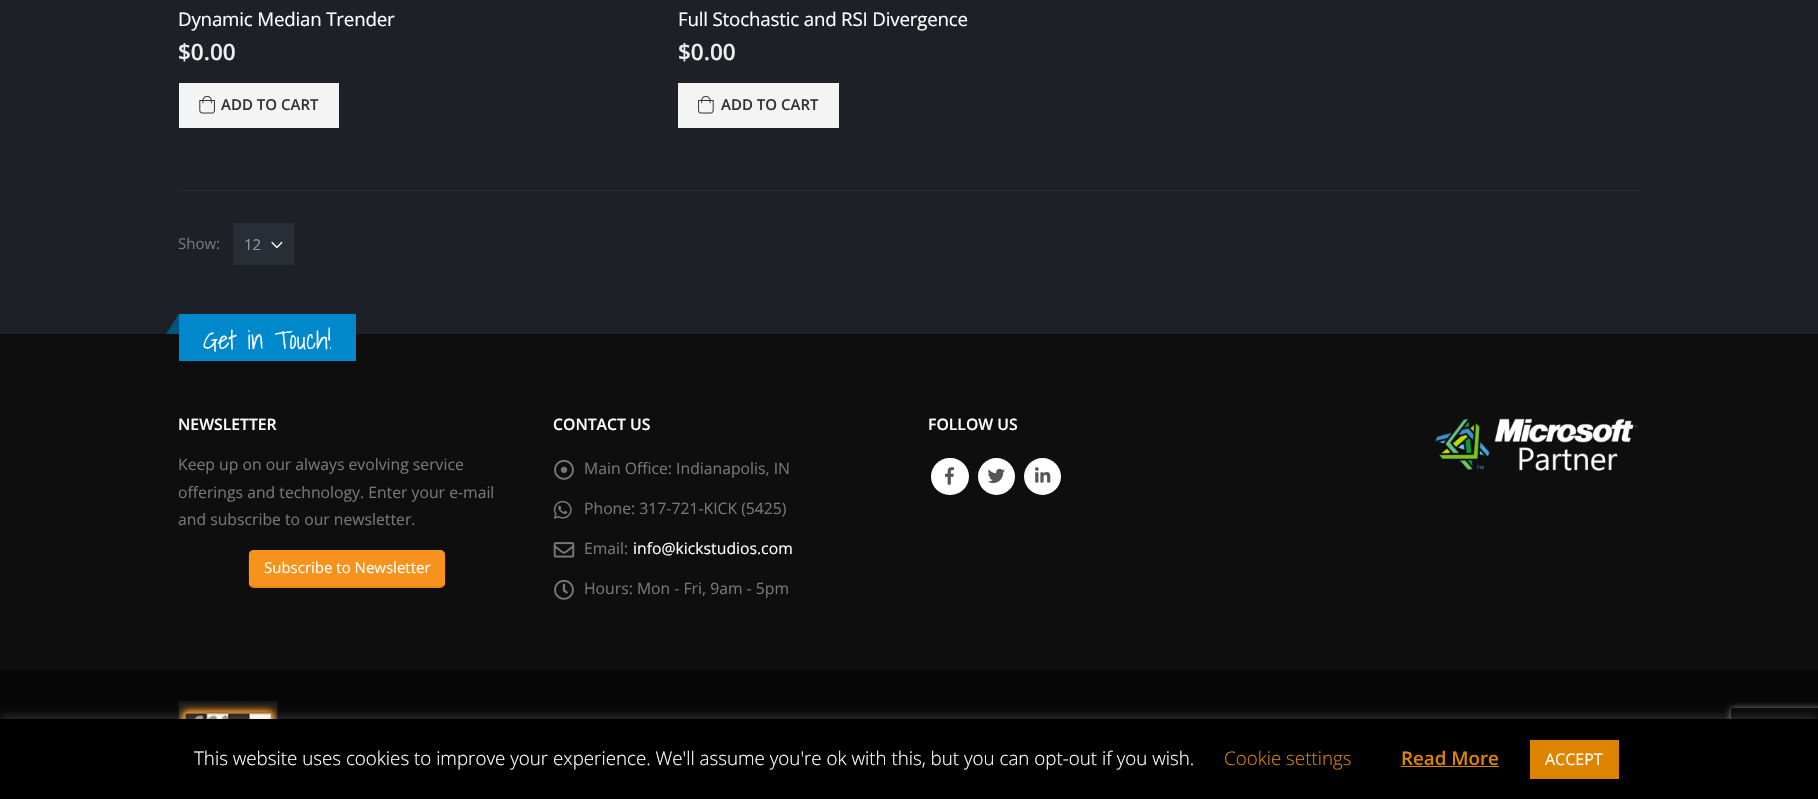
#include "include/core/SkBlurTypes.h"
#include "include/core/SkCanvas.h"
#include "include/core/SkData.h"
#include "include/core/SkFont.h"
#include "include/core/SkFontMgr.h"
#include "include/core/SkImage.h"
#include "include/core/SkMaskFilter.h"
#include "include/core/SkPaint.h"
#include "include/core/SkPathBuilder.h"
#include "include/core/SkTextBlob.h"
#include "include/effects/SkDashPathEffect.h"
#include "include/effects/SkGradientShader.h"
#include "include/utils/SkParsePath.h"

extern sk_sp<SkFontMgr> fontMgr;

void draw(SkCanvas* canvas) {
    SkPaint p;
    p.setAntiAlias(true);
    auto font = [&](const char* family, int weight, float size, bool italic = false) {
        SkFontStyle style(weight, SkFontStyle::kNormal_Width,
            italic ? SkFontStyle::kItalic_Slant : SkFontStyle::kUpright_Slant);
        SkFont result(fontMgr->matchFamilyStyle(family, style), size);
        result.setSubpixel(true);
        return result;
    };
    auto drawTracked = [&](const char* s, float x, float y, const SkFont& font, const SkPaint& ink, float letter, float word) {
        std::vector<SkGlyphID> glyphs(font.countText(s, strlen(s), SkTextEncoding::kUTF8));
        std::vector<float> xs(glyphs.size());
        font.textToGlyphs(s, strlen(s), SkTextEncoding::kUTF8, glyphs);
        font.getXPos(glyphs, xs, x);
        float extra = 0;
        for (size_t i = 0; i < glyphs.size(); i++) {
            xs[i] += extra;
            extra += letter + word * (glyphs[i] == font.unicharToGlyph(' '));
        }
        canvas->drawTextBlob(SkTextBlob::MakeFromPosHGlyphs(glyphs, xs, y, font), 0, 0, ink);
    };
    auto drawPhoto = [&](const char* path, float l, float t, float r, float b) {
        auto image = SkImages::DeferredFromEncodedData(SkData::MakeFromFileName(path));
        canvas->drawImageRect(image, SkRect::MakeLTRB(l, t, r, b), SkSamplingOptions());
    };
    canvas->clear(0xFF1D2127);
    auto font1 = font("Open Sans", 400, 18.75f);
    p.setColor(0xFFFFFFFF);
    drawTracked("Dynamic Median Trender", 178, 26, font1, p, -0.2f, 0);
    auto font2 = font("Open Sans", 600, 22.5f);
    p.setColor(0xFFEEEEEE);
    canvas->drawString("$0.00", 178, 60, font2, p);
    p.setColor(0xFFF4F4F4);
    canvas->drawRect(SkRect::MakeLTRB(179, 83, 339, 128), p);
    drawPhoto("media/1.png", 199, 95, 215, 114);
    auto font3 = font("Open Sans", 600, 15);
    p.setColor(0xFF333333);
    canvas->drawString("ADD TO CART", 221, 110, font3, p);
    p.setColor(0xFFFFFFFF);
    drawTracked("Full Stochastic and RSI Divergence", 678, 26, font1, p, -0.2f, 0);
    p.setColor(0xFFEEEEEE);
    canvas->drawString("$0.00", 678, 60, font2, p);
    p.setColor(0xFFF4F4F4);
    canvas->drawRect(SkRect::MakeLTRB(678, 83, 839, 128), p);
    drawPhoto("media/2.png", 698, 95, 714, 114);
    p.setColor(0xFF333333);
    canvas->drawString("ADD TO CART", 721, 110, font3, p);
    p.setColor(0xFF282E36);
    canvas->drawRect(SkRect::MakeLTRB(179, 190, 1641, 191), p);
    auto font4 = font("Open Sans", 400, 15);
    p.setColor(0xFF777777);
    canvas->drawString("Show:", 178, 249, font4, p);
    p.setColor(0xFF282E36);
    canvas->drawRect(SkRect::MakeLTRB(233, 223, 294, 265), p);
    drawPhoto("media/3.png", 271, 241, 283, 249);
    p.setColor(0xFF999999);
    canvas->drawString("12", 244, 250, font4, p);
    p.setColor(0xFF0E0E0E);
    canvas->drawRect(SkRect::MakeLTRB(0, 334, 1818, 670), p);
    p.setColor(0xFF0088CC);
    canvas->drawRect(SkRect::MakeLTRB(179, 314, 356, 361), p);
    p.setColor(0xFF005580);
    canvas->drawPath(SkPathBuilder().moveTo(179, 314).lineTo(179, 334).lineTo(166, 334).close().detach(), p);
    auto font5 = font("Shadows Into Light", 300, 25.25f);
    p.setColor(0xFFFFFFFF);
    canvas->drawString("Get in Touch!", 203, 349, font5, p);
    auto font6 = font("Open Sans", 600, 15.75f);
    canvas->drawString("NEWSLETTER", 178, 430, font6, p);
    auto font7 = font("Open Sans", 400, 15.75f);
    p.setColor(0xFF777777);
    {
        const struct { const char* s; float x, y; } items[] = {
            {"Keep up on our always evolving service", 178, 470},
            {"offerings and technology. Enter your e-mail", 178, 498},
            {"and subscribe to our newsletter.", 178, 525},
        };
        for (auto [s, x, y] : items) {
            canvas->drawString(s, x, y, font7, p);
        }
    }
    p.setColor(0xFFF7931D);
    canvas->drawRoundRect(SkRect::MakeLTRB(249, 550, 445, 588), 5, 5, p);
    p.setStyle(SkPaint::kStroke_Style);
    p.setStrokeWidth(1.2f);
    p.setColor(0xFFDA7A08);
    canvas->drawPath(SkPathBuilder().moveTo(443, 585.5f).cubicTo(442.5f, 586.5f, 441, 587, 440, 587).lineTo(254, 587).cubicTo(252.5f, 587, 251.5f, 586.5f, 250.5f, 585.5f).detach(), p);
    p.setColor(0xFFF7931D);
    canvas->drawPath(SkPathBuilder().moveTo(250.5f, 585.5f).cubicTo(250, 585, 249.5f, 583.5f, 249.5f, 582.5f).lineTo(249.5f, 555).cubicTo(249.5f, 554, 250, 552.5f, 250.5f, 552).cubicTo(251.5f, 551, 252.5f, 550.5f, 254, 550.5f).lineTo(440, 550.5f).cubicTo(441, 550.5f, 442.5f, 551, 443, 552).cubicTo(444, 552.5f, 444.5f, 554, 444.5f, 555).lineTo(444.5f, 582.5f).cubicTo(444.5f, 583.5f, 444, 585, 443, 585.5f).detach(), p);
    p.setStyle(SkPaint::kFill_Style);
    p.setColor(0xFFFFFFFF);
    canvas->drawString("Subscribe to Newsletter", 264, 573, font4, p);
    canvas->drawString("CONTACT US", 553, 430, font6, p);
    drawPhoto("media/4.png", 554, 459, 574, 480);
    p.setColor(0xFF777777);
    canvas->drawString("Main Office: Indianapolis, IN", 584, 474, font7, p);
    drawPhoto("media/5.png", 553, 500, 572, 519);
    canvas->drawString("Phone: 317-721-KICK (5425)", 584, 514, font7, p);
    drawPhoto("media/6.png", 553, 542, 575, 558);
    canvas->drawString("Email:", 584, 554, font7, p);
    p.setColor(0xFFFFFFFF);
    canvas->drawString("info@kickstudios.com", 633, 554, font7, p);
    drawPhoto("media/7.png", 554, 579, 574, 600);
    p.setColor(0xFF777777);
    canvas->drawString("Hours: Mon - Fri, 9am - 5pm", 584, 594, font7, p);
    p.setColor(0xFFFFFFFF);
    canvas->drawString("FOLLOW US", 928, 430, font6, p);
    canvas->drawRoundRect(SkRect::MakeLTRB(931, 458, 969, 495), 18.5f, 18.5f, p);
    drawPhoto("media/8.png", 945, 467, 954, 485);
    canvas->drawCircle(996.5f, 476.5f, 18.5f, p);
    drawPhoto("media/9.png", 987, 468, 1005, 483);
    canvas->drawCircle(1042.5f, 476.5f, 18.5f, p);
    drawPhoto("media/10.png", 1035, 467, 1051, 483);
    drawPhoto("media/11.png", 1435, 418, 1639, 471);
    p.setColor(0xFF060606);
    canvas->drawRect(SkRect::MakeLTRB(0, 670, 1818, 719), p);
    drawPhoto("media/12.png", 178, 701, 278, 719);
    p.setColor(0x4DACABAB);
    p.setMaskFilter(SkMaskFilter::MakeBlur(kNormal_SkBlurStyle, 6));
    canvas->drawRect(SkRect::MakeLTRB(0, 718, 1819, 799), p);
    p.setMaskFilter(nullptr);
    canvas->save();
    canvas->clipPath(SkPathBuilder(SkPathFillType::kEvenOdd).moveTo(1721, 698).lineTo(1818, 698).lineTo(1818, 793).lineTo(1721, 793).close().moveTo(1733.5f, 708).lineTo(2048.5f, 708).cubicTo(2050, 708, 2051, 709, 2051, 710.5f).lineTo(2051, 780.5f).cubicTo(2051, 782, 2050, 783, 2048.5f, 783).lineTo(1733.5f, 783).cubicTo(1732, 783, 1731, 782, 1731, 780.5f).lineTo(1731, 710.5f).cubicTo(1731, 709, 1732, 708, 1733.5f, 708).close().detach(), true);
    p.setColor(0xFF808080);
    p.setMaskFilter(SkMaskFilter::MakeBlur(kNormal_SkBlurStyle, 3));
    canvas->drawRoundRect(SkRect::MakeLTRB(1731, 708, 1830, 783), 2.5f, 2.5f, p);
    p.setMaskFilter(nullptr);
    canvas->restore();
    p.setColor(0xFF000000);
    canvas->drawRect(SkRect::MakeLTRB(0, 719, 1818, 799), p);
    auto font8 = font("Open Sans", 300, 18.75f);
    p.setColor(0xFFFFFFFF);
    canvas->drawString("This website uses cookies to improve your experience. We'll assume you're ok with this, but you can opt-out if you wish.", 194, 765, font8, p);
    p.setColor(0xFFDD8500);
    canvas->drawString("Cookie settings", 1224, 765, font8, p);
    auto font9 = font("Open Sans", 600, 18.75f);
    canvas->drawString("Read More", 1401, 765, font9, p);
    canvas->drawRect(SkRect::MakeLTRB(1401, 766, 1499, 767), p);
    canvas->drawRect(SkRect::MakeLTRB(1530, 740, 1619, 779), p);
    auto font10 = font("Open Sans", 400, 16);
    p.setColor(0xFFFFFFFF);
    canvas->drawString("ACCEPT", 1545, 765, font10, p);
}
